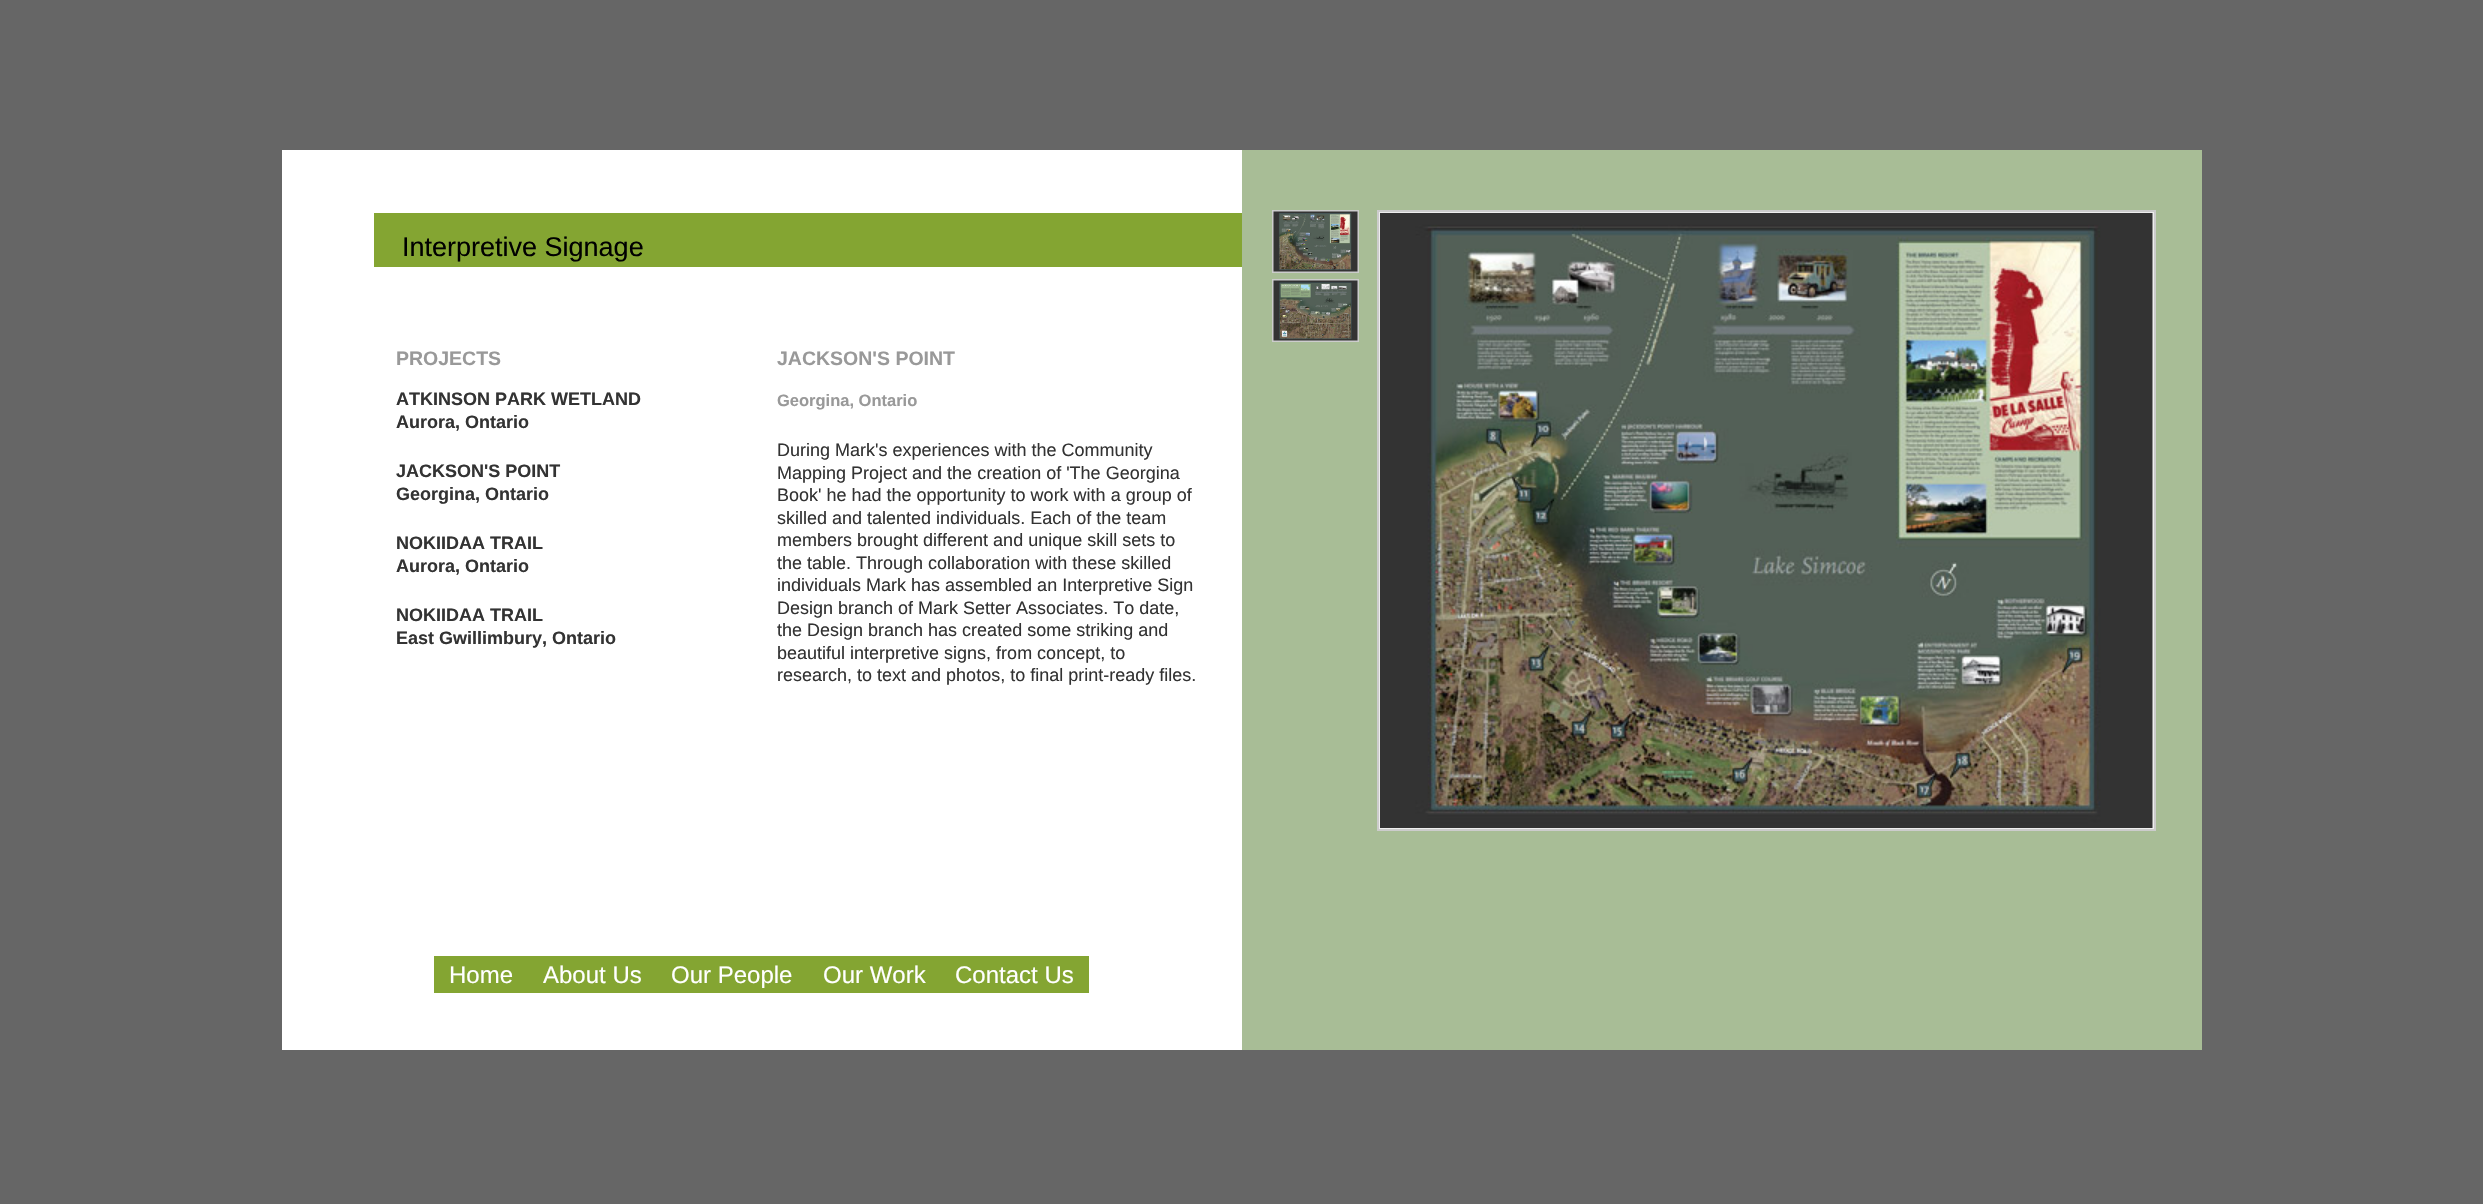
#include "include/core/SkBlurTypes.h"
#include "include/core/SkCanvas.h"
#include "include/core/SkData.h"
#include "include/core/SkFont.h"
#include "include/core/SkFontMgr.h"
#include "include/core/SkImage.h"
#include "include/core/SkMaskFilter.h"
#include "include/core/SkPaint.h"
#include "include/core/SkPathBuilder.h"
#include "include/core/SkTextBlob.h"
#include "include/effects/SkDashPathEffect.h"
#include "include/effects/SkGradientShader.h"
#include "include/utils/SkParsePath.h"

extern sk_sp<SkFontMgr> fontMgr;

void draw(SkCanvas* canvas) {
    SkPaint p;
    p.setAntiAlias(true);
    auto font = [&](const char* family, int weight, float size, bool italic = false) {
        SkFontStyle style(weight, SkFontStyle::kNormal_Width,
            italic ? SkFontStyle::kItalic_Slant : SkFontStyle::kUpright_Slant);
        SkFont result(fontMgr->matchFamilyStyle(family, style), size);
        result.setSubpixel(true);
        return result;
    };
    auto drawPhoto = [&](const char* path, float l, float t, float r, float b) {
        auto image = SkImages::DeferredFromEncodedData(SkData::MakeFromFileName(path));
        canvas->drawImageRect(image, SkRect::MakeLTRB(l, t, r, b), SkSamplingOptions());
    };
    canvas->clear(0xFF666666);
    p.setColor(0xFFFFFFFF);
    canvas->drawRect(SkRect::MakeLTRB(282, 150, 1242, 1050), p);
    p.setColor(0xFF84A532);
    canvas->drawRect(SkRect::MakeLTRB(374, 213, 1242, 267), p);
    auto font1 = font("Liberation Sans", 400, 27);
    p.setColor(0xFF000000);
    canvas->drawString("Interpretive Signage", 402, 256, font1, p);
    auto font2 = font("Liberation Sans", 700, 19.5f);
    p.setColor(0xFF999999);
    canvas->drawString("PROJECTS", 396, 365, font2, p);
    auto font3 = font("Liberation Sans", 700, 18);
    p.setColor(0xFF333333);
    {
        const struct { const char* s; float x, y; } items[] = {
            {"ATKINSON PARK WETLAND", 396, 405},
            {"Aurora, Ontario", 396, 428},
            {"JACKSON'S POINT", 396, 477},
            {"Georgina, Ontario", 396, 500},
            {"NOKIIDAA TRAIL", 396, 549},
            {"Aurora, Ontario", 396, 572},
            {"NOKIIDAA TRAIL", 396, 621},
            {"East Gwillimbury, Ontario", 396, 644},
        };
        for (auto [s, x, y] : items) {
            canvas->drawString(s, x, y, font3, p);
        }
    }
    p.setColor(0xFF999999);
    canvas->drawString("JACKSON'S POINT", 777, 365, font2, p);
    auto font4 = font("Liberation Sans", 700, 16.5f);
    canvas->drawString("Georgina, Ontario", 777, 406, font4, p);
    auto font5 = font("Liberation Sans", 400, 18);
    p.setColor(0xFF333333);
    {
        const struct { const char* s; float x, y; } items[] = {
            {"During Mark's experiences with the Community", 777, 456},
            {"Mapping Project and the creation of 'The Georgina", 777, 479},
            {"Book' he had the opportunity to work with a group of", 777, 501},
            {"skilled and talented individuals. Each of the team", 777, 524},
            {"members brought different and unique skill sets to", 777, 546},
            {"the table. Through collaboration with these skilled", 777, 569},
            {"individuals Mark has assembled an Interpretive Sign", 777, 591},
            {"Design branch of Mark Setter Associates. To date,", 777, 614},
            {"the Design branch has created some striking and", 777, 636},
            {"beautiful interpretive signs, from concept, to", 777, 659},
            {"research, to text and photos, to final print-ready files.", 777, 681},
        };
        for (auto [s, x, y] : items) {
            canvas->drawString(s, x, y, font5, p);
        }
    }
    p.setColor(0xFF84A532);
    canvas->drawRect(SkRect::MakeLTRB(434, 956, 1089, 993), p);
    auto font6 = font("Liberation Sans", 400, 24);
    p.setColor(0xFFFFFFFF);
    {
        const struct { const char* s; float x, y; } items[] = {
            {"Home", 449, 983},
            {"About Us", 543, 983},
            {"Our People", 671, 983},
            {"Our Work", 823, 983},
            {"Contact Us", 955, 983},
        };
        for (auto [s, x, y] : items) {
            canvas->drawString(s, x, y, font6, p);
        }
    }
    p.setColor(0xFFA8BD96);
    canvas->drawRect(SkRect::MakeLTRB(1242, 150, 2202, 1050), p);
    p.setStyle(SkPaint::kStroke_Style);
    p.setStrokeWidth(2);
    p.setColor(0xFFCCCCCC);
    canvas->drawRect(SkRect::MakeLTRB(1273, 211, 1358, 272), p);
    drawPhoto("media/1.png", 1273, 211, 1358, 272);
    canvas->drawRect(SkRect::MakeLTRB(1273, 280, 1358, 341), p);
    drawPhoto("media/2.png", 1273, 280, 1358, 341);
    p.setStyle(SkPaint::kFill_Style);
    p.setColor(0xFFEEEEEE);
    canvas->drawRect(SkRect::MakeLTRB(1378, 211, 2155, 830), p);
    p.setStyle(SkPaint::kStroke_Style);
    p.setColor(0xFFCCCCCC);
    canvas->drawRect(SkRect::MakeLTRB(1378, 211, 2155, 830), p);
    drawPhoto("media/3.png", 1380, 213, 2153, 828);
}
